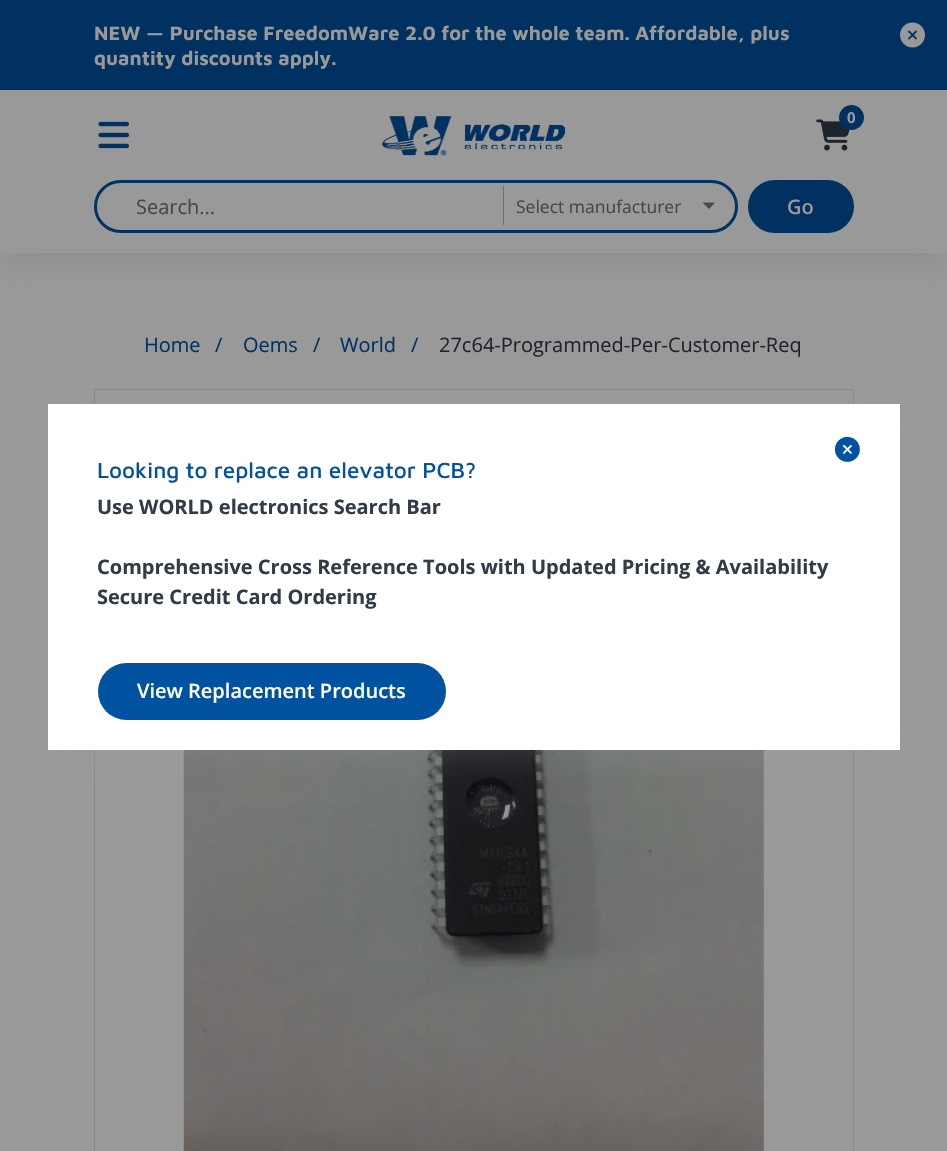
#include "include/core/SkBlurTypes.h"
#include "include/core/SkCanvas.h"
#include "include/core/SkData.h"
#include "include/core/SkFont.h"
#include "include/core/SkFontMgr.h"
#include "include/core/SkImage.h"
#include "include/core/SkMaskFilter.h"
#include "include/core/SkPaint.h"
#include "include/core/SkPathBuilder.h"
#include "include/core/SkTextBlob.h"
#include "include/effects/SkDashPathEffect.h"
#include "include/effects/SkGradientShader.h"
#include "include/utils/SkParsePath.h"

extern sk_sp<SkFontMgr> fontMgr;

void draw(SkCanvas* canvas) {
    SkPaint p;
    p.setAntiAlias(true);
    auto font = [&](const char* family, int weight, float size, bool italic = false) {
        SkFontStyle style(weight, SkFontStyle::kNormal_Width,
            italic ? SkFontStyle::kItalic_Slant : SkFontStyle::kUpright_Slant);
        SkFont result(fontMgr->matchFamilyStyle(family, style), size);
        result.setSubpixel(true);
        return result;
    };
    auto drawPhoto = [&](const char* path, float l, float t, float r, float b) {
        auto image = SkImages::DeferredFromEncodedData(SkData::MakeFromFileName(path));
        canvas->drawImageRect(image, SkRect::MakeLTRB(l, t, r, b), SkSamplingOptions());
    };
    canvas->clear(0xFF999999);
    p.setColor(0x335A5F64);
    p.setMaskFilter(SkMaskFilter::MakeBlur(kNormal_SkBlurStyle, 15));
    canvas->drawRect(SkRect::MakeLTRB(0, 10, 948, 263), p);
    p.setMaskFilter(nullptr);
    p.setColor(0xFF999999);
    canvas->drawRect(SkRect::MakeLTRB(0, 90, 947, 253), p);
    p.setColor(0xFF013160);
    canvas->drawRect(SkRect::MakeLTRB(0, 0, 947, 90), p);
    auto font1 = font("Maven Pro", 700, 20);
    p.setColor(0xFF999999);
    canvas->drawString("NEW — Purchase FreedomWare 2.0 for the whole team. Affordable, plus", 94, 40, font1, p);
    canvas->drawString("quantity discounts apply.", 94, 65, font1, p);
    drawPhoto("media/1.png", 900, 22, 925, 48);
    drawPhoto("media/2.png", 98, 121, 129, 149);
    drawPhoto("media/3.png", 381, 116, 566, 156);
    drawPhoto("media/4.png", 816, 119, 850, 151);
    p.setColor(0xFF013160);
    canvas->drawCircle(851.5f, 117.5f, 12.5f, p);
    auto font2 = font("Open Sans", 700, 15);
    p.setColor(0xFF999999);
    canvas->drawString("0", 847, 123, font2, p);
    p.setStyle(SkPaint::kStroke_Style);
    p.setStrokeWidth(3);
    p.setColor(0xFF013160);
    canvas->drawRoundRect(SkRect::MakeLTRB(95.5f, 181.5f, 736.5f, 231.5f), 25, 25, p);
    auto font3 = font("Open Sans", 400, 20);
    p.setStyle(SkPaint::kFill_Style);
    p.setColor(0xFF464646);
    canvas->drawString("Search...", 136, 214, font3, p);
    p.setColor(0xFF727272);
    canvas->drawRect(SkRect::MakeLTRB(503, 186, 504, 225), p);
    auto font4 = font("Open Sans", 400, 17.5f);
    p.setColor(0xFF464646);
    canvas->drawString("Select manufacturer", 516, 213, font4, p);
    p.setColor(0xFF494949);
    canvas->drawPath(SkPathBuilder().moveTo(702.5f, 202.5f).lineTo(715, 202.5f).lineTo(709, 209).close().detach(), p);
    p.setColor(0xFF013160);
    canvas->drawRoundRect(SkRect::MakeLTRB(748, 180, 854, 233), 26.5f, 26.5f, p);
    auto font5 = font("Open Sans", 600, 20);
    p.setColor(0xFF999999);
    canvas->drawString("Go", 787, 214, font5, p);
    p.setColor(0xFF013160);
    {
        const struct { const char* s; float x, y; } items[] = {
            {"Home", 144, 352},
            {"/", 215, 352},
            {"Oems", 243, 352},
            {"/", 313, 352},
            {"World", 340, 352},
            {"/", 411, 352},
        };
        for (auto [s, x, y] : items) {
            canvas->drawString(s, x, y, font3, p);
        }
    }
    p.setColor(0xFF1E242B);
    canvas->drawString("27c64-Programmed-Per-Customer-Req", 439, 352, font3, p);
    p.setStyle(SkPaint::kStroke_Style);
    p.setStrokeWidth(1);
    p.setColor(0xFF898989);
    canvas->drawRect(SkRect::MakeLTRB(94.5f, 389.5f, 853.5f, 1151.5f), p);
    drawPhoto("media/5.png", 183, 750, 764, 1151);
    p.setStyle(SkPaint::kFill_Style);
    p.setColor(0x33969EA6);
    p.setMaskFilter(SkMaskFilter::MakeBlur(kNormal_SkBlurStyle, 15));
    canvas->drawRect(SkRect::MakeLTRB(48, 414, 900, 760), p);
    p.setMaskFilter(nullptr);
    p.setColor(0xFFFFFFFF);
    canvas->drawRect(SkRect::MakeLTRB(48, 404, 900, 750), p);
    drawPhoto("media/6.png", 834, 436, 860, 462);
    auto font6 = font("Maven Pro", 500, 22.5f);
    p.setColor(0xFF0152A0);
    canvas->drawString("Looking to replace an elevator PCB?", 97, 478, font6, p);
    auto font7 = font("Open Sans", 700, 20);
    p.setColor(0xFF323C47);
    {
        const struct { const char* s; float x, y; } items[] = {
            {"Use WORLD electronics Search Bar", 97, 514},
            {"Comprehensive Cross Reference Tools with Updated Pricing & Availability", 97, 574},
            {"Secure Credit Card Ordering", 97, 604},
        };
        for (auto [s, x, y] : items) {
            canvas->drawString(s, x, y, font7, p);
        }
    }
    p.setColor(0xFF0152A0);
    canvas->drawRoundRect(SkRect::MakeLTRB(98, 663, 446, 720), 28.5f, 28.5f, p);
    p.setColor(0xFFFFFFFF);
    canvas->drawString("View Replacement Products", 137, 698, font5, p);
}
